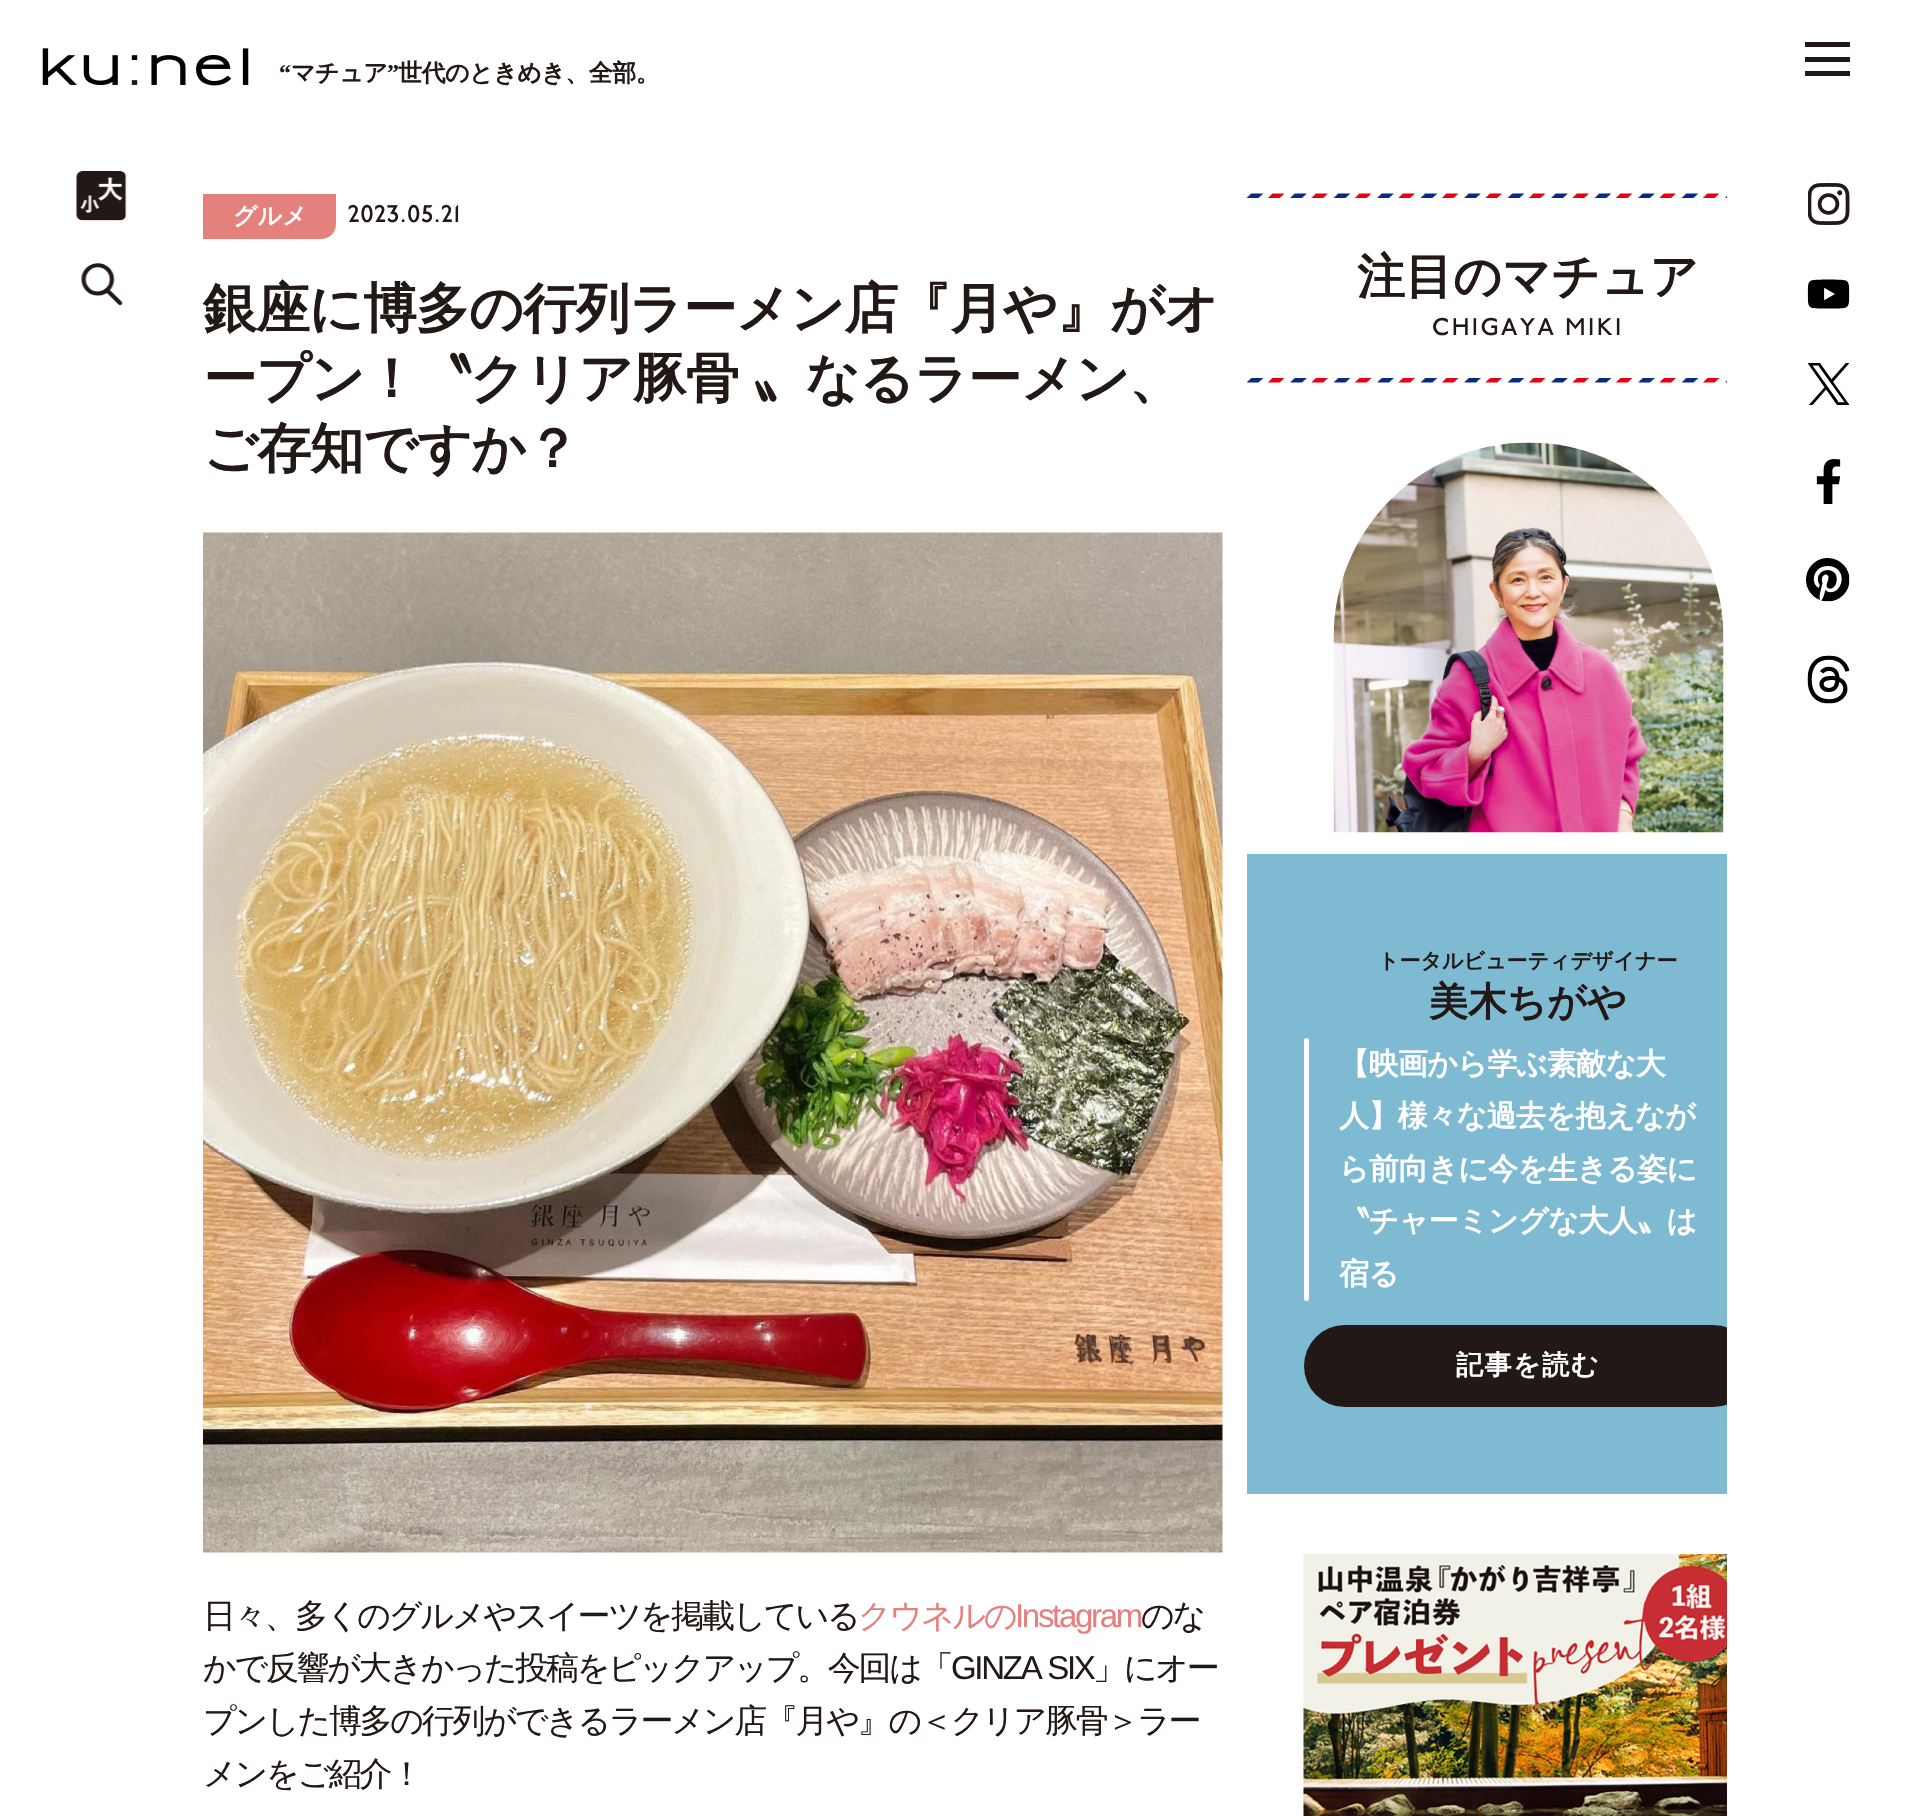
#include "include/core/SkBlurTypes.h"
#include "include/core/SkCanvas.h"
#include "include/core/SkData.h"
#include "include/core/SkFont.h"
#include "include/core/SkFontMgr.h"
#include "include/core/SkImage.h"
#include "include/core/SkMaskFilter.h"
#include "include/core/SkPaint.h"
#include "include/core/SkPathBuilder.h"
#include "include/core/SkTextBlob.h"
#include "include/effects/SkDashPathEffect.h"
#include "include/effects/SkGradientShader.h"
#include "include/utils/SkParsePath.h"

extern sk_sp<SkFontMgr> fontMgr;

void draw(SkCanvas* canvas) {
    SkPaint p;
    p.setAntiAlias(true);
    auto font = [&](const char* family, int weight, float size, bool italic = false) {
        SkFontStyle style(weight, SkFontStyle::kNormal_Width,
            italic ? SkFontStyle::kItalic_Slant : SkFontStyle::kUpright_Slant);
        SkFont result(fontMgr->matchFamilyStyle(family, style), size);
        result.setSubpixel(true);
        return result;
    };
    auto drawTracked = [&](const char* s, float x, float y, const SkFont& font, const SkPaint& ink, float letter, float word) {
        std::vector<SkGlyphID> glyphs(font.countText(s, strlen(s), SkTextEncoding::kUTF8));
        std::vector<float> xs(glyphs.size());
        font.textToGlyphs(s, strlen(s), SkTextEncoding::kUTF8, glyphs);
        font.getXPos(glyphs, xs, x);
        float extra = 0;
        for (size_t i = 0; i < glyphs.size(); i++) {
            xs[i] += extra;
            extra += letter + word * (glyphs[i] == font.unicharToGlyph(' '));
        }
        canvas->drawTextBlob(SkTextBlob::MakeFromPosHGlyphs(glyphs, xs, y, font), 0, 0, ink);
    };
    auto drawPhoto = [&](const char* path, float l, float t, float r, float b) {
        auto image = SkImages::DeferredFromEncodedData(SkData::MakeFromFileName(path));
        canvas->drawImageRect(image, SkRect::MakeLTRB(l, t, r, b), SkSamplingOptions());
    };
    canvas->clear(0xFFFFFFFF);
    drawPhoto("media/1.png", 42, 48, 249, 86);
    auto font1 = font("Liberation Serif", 700, 24);
    p.setColor(0xFF221816);
    drawTracked("“", 279, 81, font1, p, -0.5f, 0);
    auto font2 = font("WenQuanYi Zen Hei", 700, 24);
    drawTracked("マチュア", 291, 81, font2, p, -0.5f, 0);
    drawTracked("”", 387, 81, font1, p, -0.5f, 0);
    drawTracked("世代のときめき、全部。", 398, 81, font2, p, -0.5f, 0);
    {
        const struct { float l, t, r, b; SkColor color; } items[] = {
            {1805, 42, 1850, 47, 0xFF221816},
            {1805, 57, 1850, 62, 0xFF221816},
            {1805, 71, 1850, 76, 0xFF221816},
        };
        for (auto [l, t, r, b, color] : items) {
            p.setColor(color);
            canvas->drawRect(SkRect::MakeLTRB(l, t, r, b), p);
        }
    }
    auto font3 = font("WenQuanYi Zen Hei", 700, 54);
    drawTracked("銀座に博多の行列ラーメン店『月や』がオ", 203, 327, font3, p, -1.1f, 0);
    p.setColor(0xFFFFFFFF);
    canvas->drawRect(SkRect::MakeLTRB(202, 304, 203, 305), p);
    drawPhoto("media/2.png", 76, 171, 127, 221);
    drawPhoto("media/3.png", 81, 263, 123, 306);
    p.setColor(0xFFE5817D);
    canvas->drawPath(SkPathBuilder().moveTo(203, 194).lineTo(336, 194).lineTo(336, 224).cubicTo(336, 232.5f, 329.5f, 239, 321, 239).lineTo(203, 239).close().detach(), p);
    p.setColor(0xFFFFFFFF);
    canvas->drawString("グルメ", 233, 224, font2, p);
    auto font4 = font("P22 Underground", 500, 24);
    p.setColor(0xFF221816);
    drawTracked("2023.05.21", 348, 222, font4, p, 1, 0);
    drawTracked("ープン！〝クリア豚骨 〟なるラーメン、", 203, 397, font3, p, -1.1f, -1);
    drawTracked("ご存知ですか？", 203, 467, font3, p, -1.1f, 0);
    drawPhoto("media/4.png", 203, 532, 1223, 1553);
    auto font5 = font("WenQuanYi Zen Hei", 500, 33);
    drawTracked("日々、多くのグルメやスイーツを掲載している", 203, 1627, font5, p, -2.3f, 0);
    p.setColor(0xFFE5817D);
    drawTracked("クウネルの", 858, 1627, font5, p, -2.3f, 0);
    auto font6 = font("Liberation Sans", 400, 33);
    drawTracked("Instagram", 1015, 1627, font6, p, -2.3f, 0);
    p.setColor(0xFF221816);
    drawTracked("のな", 1141, 1627, font5, p, -2.3f, 0);
    drawTracked("かで反響が大きかった投稿をピックアップ。今回は「", 203, 1679, font5, p, -2.3f, 0);
    drawTracked("GINZA SIX", 951, 1679, font6, p, -2.3f, 0);
    {
        const struct { const char* s; float x, y; } items[] = {
            {"」にオー", 1093, 1679},
            {"プンした博多の行列ができるラーメン店『月や』の＜クリア豚骨＞ラー", 203, 1732},
            {"メンをご紹介！", 203, 1785},
        };
        for (auto [s, x, y] : items) {
            drawTracked(s, x, y, font5, p, -2.3f, 0);
        }
    }
    drawPhoto("media/5.png", 1246, 193, 1727, 198);
    auto font7 = font("WenQuanYi Zen Hei", 700, 48);
    canvas->drawString("注目のマチュア", 1357, 293, font7, p);
    drawTracked("CHIGAYA MIKI", 1432, 335, font4, p, 2.4f, 0);
    drawPhoto("media/6.png", 1246, 378, 1727, 383);
    drawPhoto("media/7.png", 1333, 442, 1724, 833);
    p.setColor(0xFF7EBAD1);
    canvas->drawRect(SkRect::MakeLTRB(1247, 854, 1727, 1494), p);
    auto font8 = font("WenQuanYi Zen Hei", 700, 21);
    p.setColor(0xFF221816);
    canvas->drawString("トータルビューティデザイナー", 1378, 968, font8, p);
    auto font9 = font("WenQuanYi Zen Hei", 700, 39);
    canvas->drawString("美木ちがや", 1429, 1015, font9, p);
    p.setColor(0xFFFFFFFF);
    canvas->drawRoundRect(SkRect::MakeLTRB(1304, 1038, 1309, 1301), 2.5f, 2.5f, p);
    auto font10 = font("WenQuanYi Zen Hei", 700, 30);
    {
        const struct { const char* s; float x, y; } items[] = {
            {"【映画から学ぶ素敵な大", 1339, 1074},
            {"人】様々な過去を抱えなが", 1339, 1126},
            {"ら前向きに今を生きる姿に", 1339, 1179},
            {"〝チャーミングな大人〟は", 1339, 1231},
            {"宿る", 1339, 1284},
        };
        for (auto [s, x, y] : items) {
            drawTracked(s, x, y, font10, p, -0.6f, 0);
        }
    }
    p.setColor(0xFF221816);
    canvas->drawRoundRect(SkRect::MakeLTRB(1304, 1325, 1754, 1407), 41, 41, p);
    auto font11 = font("WenQuanYi Zen Hei", 700, 27);
    p.setColor(0xFFFFFFFF);
    drawTracked("記事を読む", 1456, 1374, font11, p, 1.5f, 0);
    drawPhoto("media/8.png", 1303, 1554, 1727, 1816);
    canvas->drawRect(SkRect::MakeLTRB(1727, 1327, 1754, 1405), p);
    drawPhoto("media/9.png", 1808, 183, 1850, 225);
    drawPhoto("media/10.png", 1807, 279, 1850, 309);
    drawPhoto("media/11.png", 1807, 363, 1850, 405);
    drawPhoto("media/12.png", 1816, 459, 1841, 504);
    drawPhoto("media/13.png", 1806, 558, 1850, 602);
    drawPhoto("media/14.png", 1807, 655, 1850, 704);
}
